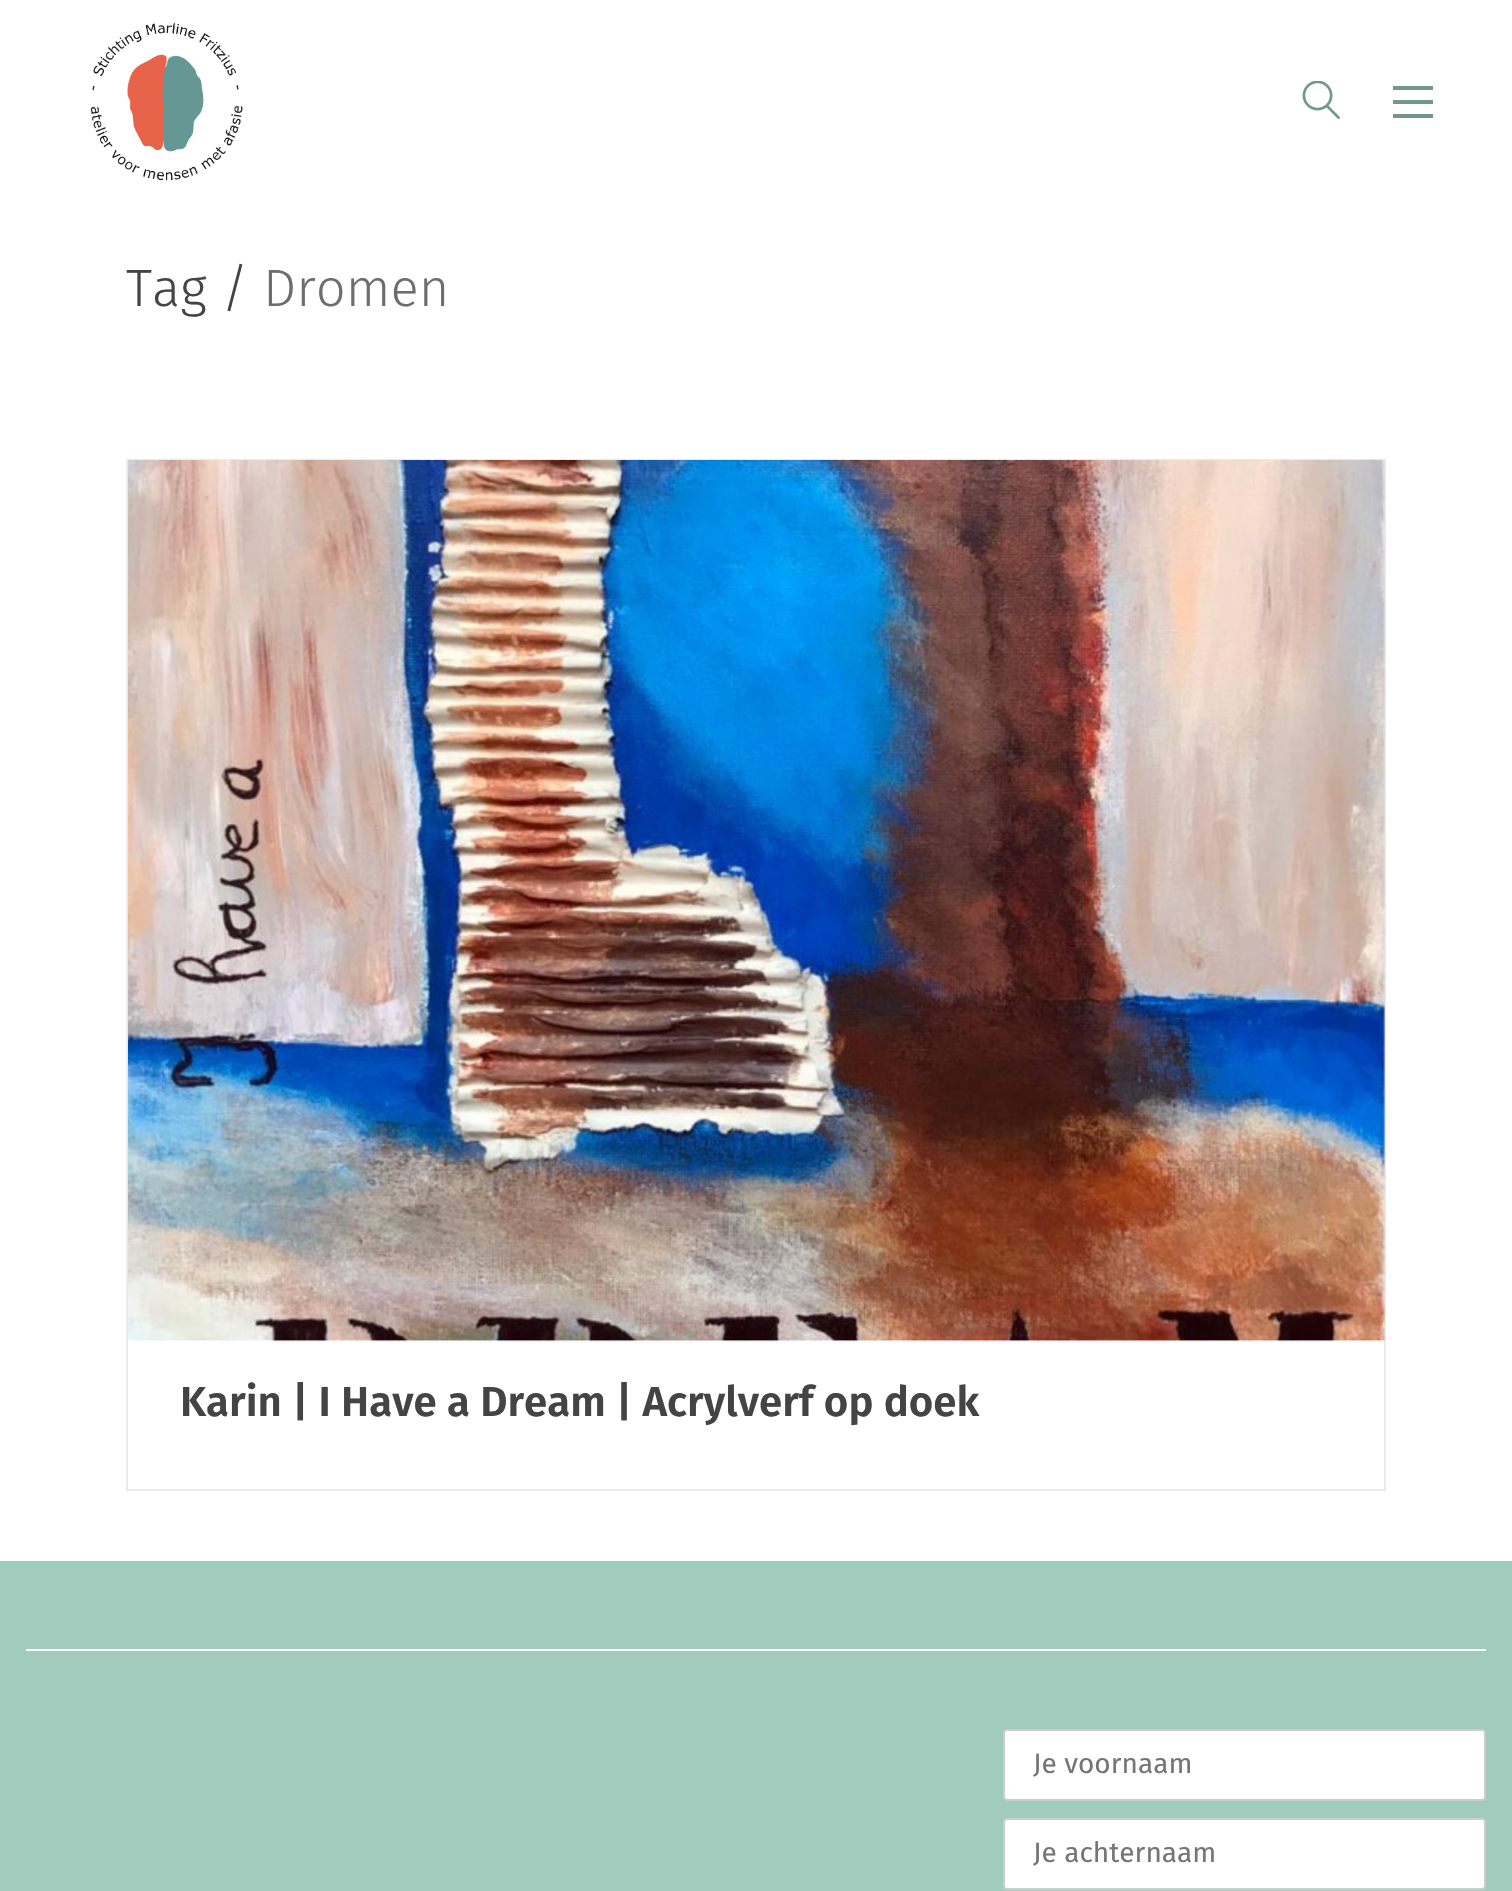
#include "include/core/SkBlurTypes.h"
#include "include/core/SkCanvas.h"
#include "include/core/SkData.h"
#include "include/core/SkFont.h"
#include "include/core/SkFontMgr.h"
#include "include/core/SkImage.h"
#include "include/core/SkMaskFilter.h"
#include "include/core/SkPaint.h"
#include "include/core/SkPathBuilder.h"
#include "include/core/SkTextBlob.h"
#include "include/effects/SkDashPathEffect.h"
#include "include/effects/SkGradientShader.h"
#include "include/utils/SkParsePath.h"

extern sk_sp<SkFontMgr> fontMgr;

void draw(SkCanvas* canvas) {
    SkPaint p;
    p.setAntiAlias(true);
    auto font = [&](const char* family, int weight, float size, bool italic = false) {
        SkFontStyle style(weight, SkFontStyle::kNormal_Width,
            italic ? SkFontStyle::kItalic_Slant : SkFontStyle::kUpright_Slant);
        SkFont result(fontMgr->matchFamilyStyle(family, style), size);
        result.setSubpixel(true);
        return result;
    };
    auto drawPhoto = [&](const char* path, float l, float t, float r, float b) {
        auto image = SkImages::DeferredFromEncodedData(SkData::MakeFromFileName(path));
        canvas->drawImageRect(image, SkRect::MakeLTRB(l, t, r, b), SkSamplingOptions());
    };
    canvas->clear(0xFFFFFFFF);
    drawPhoto("media/1.png", 90, 22, 243, 181);
    drawPhoto("media/2.png", 1302, 81, 1340, 119);
    {
        const struct { float l, t, r, b; SkColor color; } items[] = {
            {1393, 86, 1433, 90, 0xFF71988B},
            {1393, 100, 1433, 104, 0xFF71988B},
            {1393, 114, 1433, 118, 0xFF71988B},
        };
        for (auto [l, t, r, b, color] : items) {
            p.setColor(color);
            canvas->drawRect(SkRect::MakeLTRB(l, t, r, b), p);
        }
    }
    auto font1 = font("Fira Sans", 300, 52.5f);
    p.setColor(0xFF444444);
    canvas->drawString("Tag /", 126, 306, font1, p);
    p.setColor(0xFF6D6D6D);
    canvas->drawString("Dromen", 263, 306, font1, p);
    {
        const struct { float l, t, r, b; SkColor color; } items[] = {
            {126, 459, 1386, 461, 0xFFEAEAEA},
            {1384, 459, 1386, 1341, 0xFFEAEAEA},
            {126, 459, 128, 1341, 0xFFEAEAEA},
            {1384, 1341, 1386, 1491, 0xFFEAEAEA},
        };
        for (auto [l, t, r, b, color] : items) {
            p.setColor(color);
            canvas->drawRect(SkRect::MakeLTRB(l, t, r, b), p);
        }
    }
    drawPhoto("media/3.png", 128, 460, 1385, 1342);
    canvas->drawRect(SkRect::MakeLTRB(126, 1489, 1386, 1491), p);
    canvas->drawRect(SkRect::MakeLTRB(126, 1341, 128, 1491), p);
    auto font2 = font("Fira Sans", 600, 42);
    p.setColor(0xFF444444);
    canvas->drawString("Karin | I Have a Dream | Acrylverf op doek", 180, 1416, font2, p);
    p.setColor(0xFFA1CBBD);
    canvas->drawRect(SkRect::MakeLTRB(0, 1561, 1512, 1891), p);
    p.setColor(0xFFFFFFFF);
    canvas->drawRect(SkRect::MakeLTRB(26, 1649, 1486, 1651), p);
    canvas->drawRoundRect(SkRect::MakeLTRB(1004, 1730, 1485, 1800), 3, 3, p);
    p.setStyle(SkPaint::kStroke_Style);
    p.setStrokeWidth(2);
    p.setColor(0xFFCCCCCC);
    canvas->drawRoundRect(SkRect::MakeLTRB(1004, 1730, 1485, 1800), 3, 3, p);
    auto font3 = font("Fira Sans", 400, 28);
    p.setStyle(SkPaint::kFill_Style);
    p.setColor(0xFF757575);
    canvas->drawString("Je voornaam", 1033, 1773, font3, p);
    p.setColor(0xFFFFFFFF);
    canvas->drawRoundRect(SkRect::MakeLTRB(1004, 1819, 1485, 1889), 3, 3, p);
    p.setStyle(SkPaint::kStroke_Style);
    p.setColor(0xFFCCCCCC);
    canvas->drawRoundRect(SkRect::MakeLTRB(1004, 1819, 1485, 1889), 3, 3, p);
    p.setStyle(SkPaint::kFill_Style);
    p.setColor(0xFF757575);
    canvas->drawString("Je achternaam", 1033, 1862, font3, p);
}
